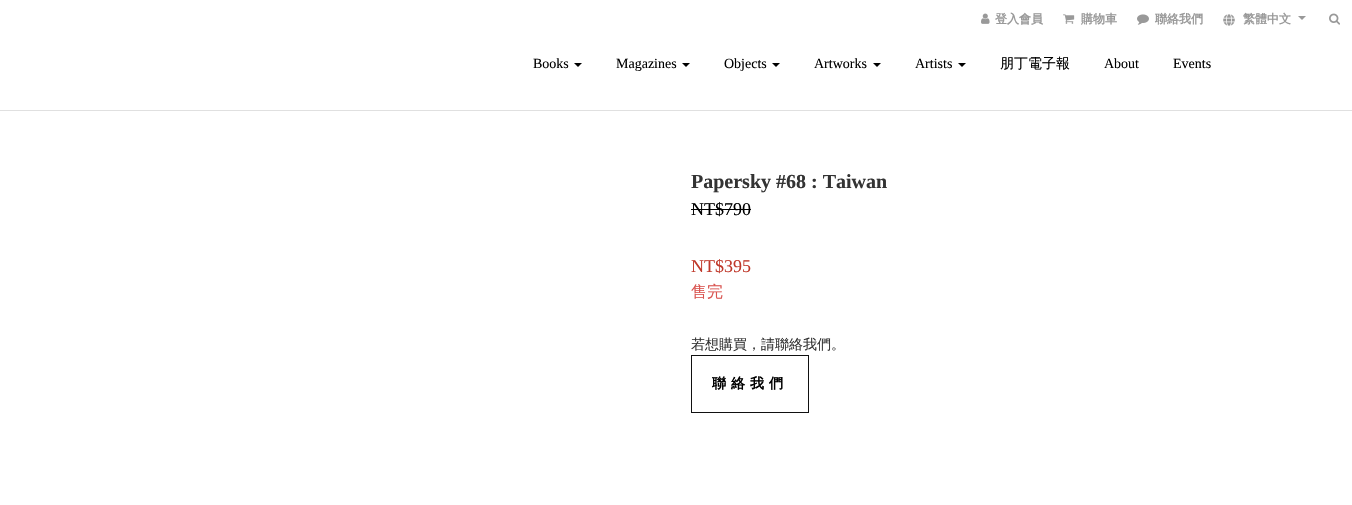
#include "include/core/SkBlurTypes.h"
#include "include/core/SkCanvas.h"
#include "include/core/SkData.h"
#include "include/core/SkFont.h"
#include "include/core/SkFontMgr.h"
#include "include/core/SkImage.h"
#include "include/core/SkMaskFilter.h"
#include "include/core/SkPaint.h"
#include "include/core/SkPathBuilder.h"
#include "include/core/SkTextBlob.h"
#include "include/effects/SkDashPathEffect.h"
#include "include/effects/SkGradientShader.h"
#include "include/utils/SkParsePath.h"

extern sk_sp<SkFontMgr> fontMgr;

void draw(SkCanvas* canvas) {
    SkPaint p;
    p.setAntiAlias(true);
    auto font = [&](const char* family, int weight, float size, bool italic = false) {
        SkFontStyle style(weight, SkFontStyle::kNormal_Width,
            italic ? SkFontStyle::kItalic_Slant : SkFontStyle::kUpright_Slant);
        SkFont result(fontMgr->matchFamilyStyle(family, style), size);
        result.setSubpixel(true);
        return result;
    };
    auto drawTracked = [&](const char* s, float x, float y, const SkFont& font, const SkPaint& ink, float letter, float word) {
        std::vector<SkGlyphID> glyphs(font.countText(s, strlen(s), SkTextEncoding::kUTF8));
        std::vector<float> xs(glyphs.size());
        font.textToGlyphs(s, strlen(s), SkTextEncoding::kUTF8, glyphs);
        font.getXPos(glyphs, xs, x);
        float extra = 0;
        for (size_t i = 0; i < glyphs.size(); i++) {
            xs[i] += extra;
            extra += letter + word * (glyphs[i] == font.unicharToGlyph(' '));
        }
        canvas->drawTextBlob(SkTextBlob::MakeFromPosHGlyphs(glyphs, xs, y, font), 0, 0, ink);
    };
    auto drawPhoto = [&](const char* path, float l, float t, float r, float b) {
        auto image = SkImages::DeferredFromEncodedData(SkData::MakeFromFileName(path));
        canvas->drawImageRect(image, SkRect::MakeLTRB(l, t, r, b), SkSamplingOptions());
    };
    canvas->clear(0xFFFFFFFF);
    drawPhoto("media/1.png", 981, 13, 990, 24);
    auto font1 = font("WenQuanYi Zen Hei", 700, 12);
    p.setColor(0xFF999999);
    canvas->drawString("登入會員", 995, 23, font1, p);
    drawPhoto("media/2.png", 1063, 14, 1075, 24);
    canvas->drawString("購物車", 1081, 23, font1, p);
    drawPhoto("media/3.png", 1137, 14, 1149, 25);
    canvas->drawString("聯絡我們", 1155, 23, font1, p);
    drawPhoto("media/4.png", 1223, 14, 1235, 26);
    canvas->drawString("繁體中文", 1243, 23, font1, p);
    canvas->drawPath(SkPathBuilder().moveTo(1298, 16).lineTo(1306, 16).lineTo(1302, 20).close().detach(), p);
    drawPhoto("media/5.png", 1329, 13, 1340, 25);
    p.setColor(0xFFE0E0E0);
    canvas->drawRect(SkRect::MakeLTRB(0, 110, 1352, 111), p);
    auto font2 = font("Liberation Serif", 400, 14);
    p.setColor(0xFF000000);
    canvas->drawString("Books", 533, 68, font2, p);
    canvas->drawPath(SkPathBuilder().moveTo(574, 63).lineTo(582, 63).lineTo(578, 67).close().detach(), p);
    canvas->drawString("Magazines", 616, 68, font2, p);
    canvas->drawPath(SkPathBuilder().moveTo(682, 63).lineTo(690, 63).lineTo(686, 67).close().detach(), p);
    canvas->drawString("Objects", 724, 68, font2, p);
    canvas->drawPath(SkPathBuilder().moveTo(772, 63).lineTo(780, 63).lineTo(776, 67).close().detach(), p);
    canvas->drawString("Artworks", 814, 68, font2, p);
    canvas->drawPath(SkPathBuilder().moveTo(873, 63).lineTo(881, 63).lineTo(877, 67).close().detach(), p);
    canvas->drawString("Artists", 915, 68, font2, p);
    canvas->drawPath(SkPathBuilder().moveTo(958, 63).lineTo(966, 63).lineTo(962, 67).close().detach(), p);
    auto font3 = font("WenQuanYi Zen Hei", 500, 14);
    canvas->drawString("朋丁電子報", 1000, 68, font3, p);
    canvas->drawString("About", 1104, 68, font2, p);
    canvas->drawString("Events", 1173, 68, font2, p);
    auto font4 = font("Liberation Serif", 700, 20);
    p.setColor(0xFF333333);
    canvas->drawString("Papersky #68 : Taiwan", 691, 188, font4, p);
    auto font5 = font("Liberation Serif", 400, 18);
    p.setColor(0xFF000000);
    canvas->drawString("NT$790", 691, 215, font5, p);
    canvas->drawRect(SkRect::MakeLTRB(691, 209, 751, 210), p);
    p.setColor(0xFFC0392B);
    canvas->drawString("NT$395", 691, 272, font5, p);
    auto font6 = font("WenQuanYi Zen Hei", 500, 16);
    p.setColor(0xFFD9534F);
    canvas->drawString("售完", 691, 297, font6, p);
    p.setColor(0xFF333333);
    canvas->drawString("若想購買，請聯絡我們。", 691, 349, font3, p);
    p.setStyle(SkPaint::kStroke_Style);
    p.setStrokeWidth(1);
    p.setColor(0xFF111111);
    canvas->drawRect(SkRect::MakeLTRB(691.5f, 355.5f, 808.5f, 412.5f), p);
    auto font7 = font("WenQuanYi Zen Hei", 700, 14);
    p.setStyle(SkPaint::kFill_Style);
    p.setColor(0xFF000000);
    drawTracked("聯絡我們", 712, 388, font7, p, 5, 0);
}
